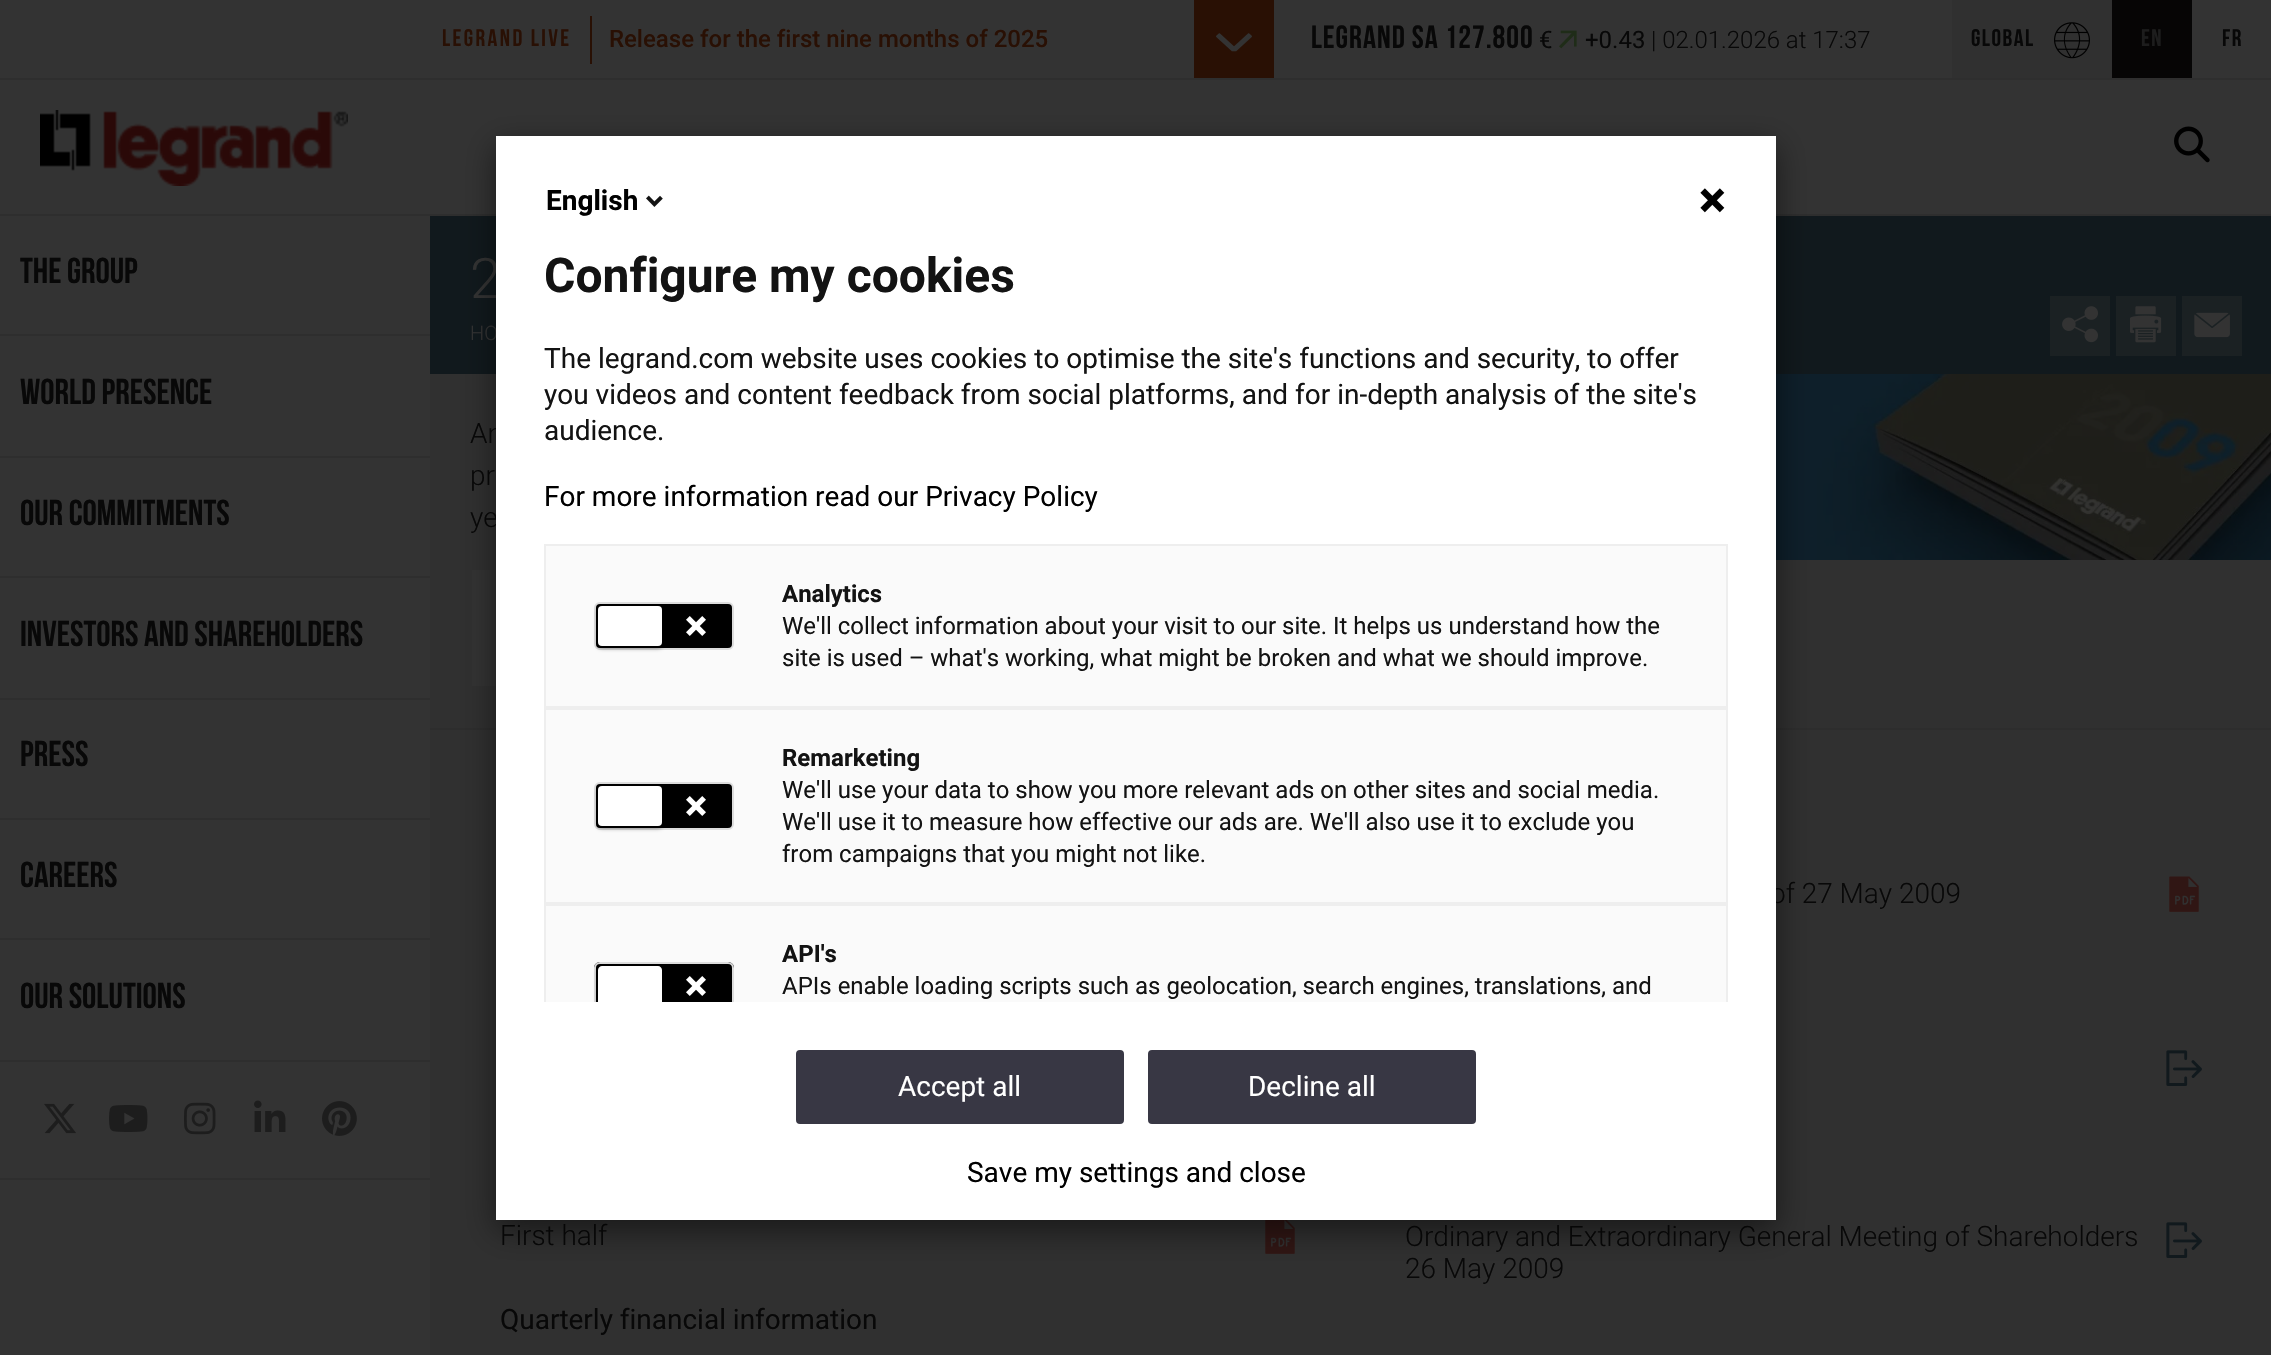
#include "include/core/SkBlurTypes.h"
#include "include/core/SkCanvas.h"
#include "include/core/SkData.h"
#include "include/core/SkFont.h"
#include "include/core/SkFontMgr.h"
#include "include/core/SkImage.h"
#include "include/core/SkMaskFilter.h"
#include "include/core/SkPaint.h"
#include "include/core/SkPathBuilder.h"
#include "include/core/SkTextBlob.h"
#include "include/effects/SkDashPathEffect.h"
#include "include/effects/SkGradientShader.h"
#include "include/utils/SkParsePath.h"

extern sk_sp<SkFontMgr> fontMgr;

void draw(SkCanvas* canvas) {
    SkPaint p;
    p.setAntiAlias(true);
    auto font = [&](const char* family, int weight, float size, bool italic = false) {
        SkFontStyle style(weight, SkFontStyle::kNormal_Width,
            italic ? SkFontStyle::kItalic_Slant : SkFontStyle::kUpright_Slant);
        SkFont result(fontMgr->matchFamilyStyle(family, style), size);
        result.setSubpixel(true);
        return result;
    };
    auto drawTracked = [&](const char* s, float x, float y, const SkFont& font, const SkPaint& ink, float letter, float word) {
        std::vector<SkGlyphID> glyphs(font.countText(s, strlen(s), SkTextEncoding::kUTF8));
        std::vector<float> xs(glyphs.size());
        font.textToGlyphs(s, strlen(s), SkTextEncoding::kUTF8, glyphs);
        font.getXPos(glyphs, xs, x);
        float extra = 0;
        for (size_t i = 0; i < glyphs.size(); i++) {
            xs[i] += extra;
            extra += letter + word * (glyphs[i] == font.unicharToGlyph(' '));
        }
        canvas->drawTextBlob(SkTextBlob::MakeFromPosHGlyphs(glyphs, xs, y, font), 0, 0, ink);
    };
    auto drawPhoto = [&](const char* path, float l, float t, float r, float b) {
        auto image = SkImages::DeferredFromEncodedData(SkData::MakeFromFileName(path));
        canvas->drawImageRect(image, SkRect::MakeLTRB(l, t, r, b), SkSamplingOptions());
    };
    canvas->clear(0xFF333333);
    p.setColor(0xFF2E2E2E);
    canvas->drawRect(SkRect::MakeLTRB(0, 78, 2271, 80), p);
    auto font1 = font("Bebas Neue", 700, 24);
    p.setColor(0xFF291004);
    drawTracked("LEGRAND LIVE", 442, 46, font1, p, 2.4f, 0);
    canvas->drawRect(SkRect::MakeLTRB(590, 16, 592, 64), p);
    auto font2 = font("Roboto", 500, 24);
    canvas->drawString("Release for the first nine months of 2025", 609, 47, font2, p);
    canvas->drawRect(SkRect::MakeLTRB(1194, 0, 1274, 78), p);
    drawPhoto("media/1.png", 1216, 33, 1252, 52);
    auto font3 = font("Bebas Neue", 700, 32);
    p.setColor(0xFF080808);
    drawTracked("LEGRAND SA 127.800", 1311, 48, font3, p, 1, 0);
    auto font4 = font("Roboto", 400, 24);
    canvas->drawString("€", 1539, 48, font4, p);
    drawPhoto("media/2.png", 1559, 30, 1577, 49);
    canvas->drawString("+0.43", 1585, 48, font4, p);
    auto font5 = font("Roboto", 300, 24);
    canvas->drawString("| 02.01.2026 at 17:37", 1651, 48, font5, p);
    p.setColor(0xFF303030);
    canvas->drawRect(SkRect::MakeLTRB(1952, 0, 2112, 78), p);
    p.setColor(0xFF080808);
    drawTracked("GLOBAL", 1971, 46, font1, p, 1.5f, 0);
    drawPhoto("media/3.png", 2054, 22, 2090, 59);
    p.setColor(0xFF060505);
    canvas->drawRect(SkRect::MakeLTRB(2112, 0, 2192, 78), p);
    p.setColor(0xFF1D1D1D);
    drawTracked("en", 2141, 46, font1, p, 1.5f, 0);
    p.setColor(0xFF080808);
    drawTracked("fr", 2222, 46, font1, p, 1.5f, 0);
    p.setColor(0xFF2E2E2E);
    canvas->drawRect(SkRect::MakeLTRB(0, 214, 2271, 216), p);
    drawPhoto("media/4.png", 40, 110, 348, 186);
    drawPhoto("media/5.png", 2174, 126, 2210, 163);
    canvas->drawRect(SkRect::MakeLTRB(0, 334, 430, 336), p);
    auto font6 = font("Bebas Neue", 700, 36);
    p.setColor(0xFF080808);
    canvas->drawString("THE GROUP", 20, 283, font6, p);
    p.setColor(0xFF2E2E2E);
    canvas->drawRect(SkRect::MakeLTRB(0, 456, 430, 458), p);
    p.setColor(0xFF080808);
    canvas->drawString("WORLD PRESENCE", 20, 404, font6, p);
    p.setColor(0xFF2E2E2E);
    canvas->drawRect(SkRect::MakeLTRB(0, 576, 430, 578), p);
    p.setColor(0xFF080808);
    canvas->drawString("OUR COMMITMENTS", 20, 525, font6, p);
    p.setColor(0xFF2E2E2E);
    canvas->drawRect(SkRect::MakeLTRB(0, 698, 430, 700), p);
    p.setColor(0xFF080808);
    canvas->drawString("INVESTORS AND SHAREHOLDERS", 20, 646, font6, p);
    p.setColor(0xFF2E2E2E);
    canvas->drawRect(SkRect::MakeLTRB(0, 818, 430, 820), p);
    p.setColor(0xFF080808);
    canvas->drawString("PRESS", 20, 766, font6, p);
    p.setColor(0xFF2E2E2E);
    canvas->drawRect(SkRect::MakeLTRB(0, 938, 430, 940), p);
    p.setColor(0xFF080808);
    canvas->drawString("CAREERS", 20, 887, font6, p);
    p.setColor(0xFF2E2E2E);
    canvas->drawRect(SkRect::MakeLTRB(0, 1060, 430, 1062), p);
    p.setColor(0xFF080808);
    canvas->drawString("OUR SOLUTIONS", 20, 1008, font6, p);
    p.setColor(0xFF2E2E2E);
    canvas->drawRect(SkRect::MakeLTRB(0, 1178, 430, 1180), p);
    drawPhoto("media/6.png", 44, 1103, 76, 1134);
    drawPhoto("media/7.png", 109, 1105, 148, 1132);
    drawPhoto("media/8.png", 184, 1102, 216, 1135);
    drawPhoto("media/9.png", 254, 1100, 286, 1132);
    drawPhoto("media/10.png", 322, 1101, 357, 1136);
    p.setColor(0xFF11191D);
    canvas->drawRect(SkRect::MakeLTRB(430, 216, 2271, 374), p);
    auto font7 = font("Roboto", 300, 56);
    p.setColor(0xFF333333);
    canvas->drawString("2", 470, 298, font7, p);
    auto font8 = font("Roboto", 300, 20);
    canvas->drawString("HO", 470, 340, font8, p);
    p.setColor(0xFF1B2123);
    canvas->drawRect(SkRect::MakeLTRB(2050, 296, 2110, 356), p);
    drawPhoto("media/11.png", 2062, 306, 2098, 343);
    canvas->drawRect(SkRect::MakeLTRB(2116, 296, 2176, 356), p);
    drawPhoto("media/12.png", 2130, 306, 2162, 343);
    canvas->drawRect(SkRect::MakeLTRB(2182, 296, 2242, 356), p);
    drawPhoto("media/13.png", 2194, 312, 2230, 338);
    p.setColor(0xFF303030);
    canvas->drawRect(SkRect::MakeLTRB(430, 374, 2271, 728), p);
    p.setColor(0xFF2D2D2D);
    canvas->drawRect(SkRect::MakeLTRB(430, 728, 2271, 730), p);
    auto font9 = font("Roboto", 300, 28);
    p.setColor(0xFF080808);
    {
        const struct { const char* s; float x, y; } items[] = {
            {"An", 470, 443},
            {"pr", 470, 485},
            {"ye", 470, 527},
        };
        for (auto [s, x, y] : items) {
            canvas->drawString(s, x, y, font9, p);
        }
    }
    p.setColor(0xFF333333);
    canvas->drawRect(SkRect::MakeLTRB(472, 570, 496, 686), p);
    drawPhoto("media/14.png", 1776, 374, 2271, 560);
    p.setColor(0xFF303030);
    canvas->drawRect(SkRect::MakeLTRB(430, 730, 2271, 1355), p);
    p.setColor(0xFF080808);
    canvas->drawString("of 27 May 2009", 1770, 903, font9, p);
    drawPhoto("media/15.png", 2169, 876, 2199, 912);
    drawPhoto("media/16.png", 2166, 1050, 2202, 1086);
    canvas->drawString("First half", 500, 1245, font9, p);
    drawPhoto("media/17.png", 1265, 1220, 1295, 1254);
    canvas->drawString("Ordinary and Extraordinary General Meeting of Shareholders", 1405, 1246, font9, p);
    canvas->drawString("26 May 2009", 1405, 1278, font9, p);
    drawPhoto("media/16.png", 2166, 1222, 2202, 1258);
    auto font10 = font("Roboto", 400, 28);
    canvas->drawString("Quarterly financial information", 500, 1329, font10, p);
    p.setColor(0x80000000);
    p.setMaskFilter(SkMaskFilter::MakeBlur(kNormal_SkBlurStyle, 15));
    canvas->drawRect(SkRect::MakeLTRB(496, 146, 1776, 1230), p);
    p.setMaskFilter(nullptr);
    p.setColor(0xFFFFFFFF);
    canvas->drawRect(SkRect::MakeLTRB(496, 136, 1776, 1220), p);
    auto font11 = font("Roboto", 700, 28);
    p.setColor(0xFF000000);
    canvas->drawString("English", 546, 210, font11, p);
    drawPhoto("media/18.png", 646, 195, 663, 207);
    drawPhoto("media/19.png", 1700, 188, 1725, 213);
    auto font12 = font("Roboto", 700, 48);
    p.setColor(0xFF131313);
    canvas->drawString("Configure my cookies", 544, 292, font12, p);
    {
        const struct { const char* s; float x, y; } items[] = {
            {"The legrand.com website uses cookies to optimise the site's functions and security, to offer", 544, 368},
            {"you videos and content feedback from social platforms, and for in-depth analysis of the site's", 544, 404},
            {"audience.", 544, 440},
        };
        for (auto [s, x, y] : items) {
            canvas->drawString(s, x, y, font10, p);
        }
    }
    p.setColor(0xFF000000);
    canvas->drawString("For more information read our Privacy Policy", 544, 506, font10, p);
    p.setColor(0xFFFAFAFA);
    canvas->drawRect(SkRect::MakeLTRB(545, 545, 1727, 707), p);
    p.setStyle(SkPaint::kStroke_Style);
    p.setStrokeWidth(2);
    p.setColor(0xFFEEEEEE);
    canvas->drawRect(SkRect::MakeLTRB(545, 545, 1727, 707), p);
    p.setStyle(SkPaint::kFill_Style);
    p.setColor(0xFF000000);
    canvas->drawRoundRect(SkRect::MakeLTRB(595, 603, 733, 649), 5, 5, p);
    p.setStyle(SkPaint::kStroke_Style);
    p.setColor(0xFFDDDDDD);
    canvas->drawRoundRect(SkRect::MakeLTRB(595, 603, 733, 649), 5, 5, p);
    p.setStyle(SkPaint::kFill_Style);
    p.setColor(0x80000000);
    p.setMaskFilter(SkMaskFilter::MakeBlur(kNormal_SkBlurStyle, 2));
    canvas->drawRoundRect(SkRect::MakeLTRB(598, 608, 662, 648), 4, 4, p);
    p.setMaskFilter(nullptr);
    p.setColor(0xFFFFFFFF);
    canvas->drawRoundRect(SkRect::MakeLTRB(598, 606, 662, 646), 4, 4, p);
    drawPhoto("media/20.png", 686, 616, 706, 636);
    auto font13 = font("Roboto", 700, 24);
    p.setColor(0xFF131313);
    canvas->drawString("Analytics", 782, 602, font13, p);
    canvas->drawString("We'll collect information about your visit to our site. It helps us understand how the", 782, 634, font4, p);
    canvas->drawString("site is used – what's working, what might be broken and what we should improve.", 782, 666, font4, p);
    p.setColor(0xFFFAFAFA);
    canvas->drawRect(SkRect::MakeLTRB(545, 709, 1727, 903), p);
    p.setStyle(SkPaint::kStroke_Style);
    p.setColor(0xFFEEEEEE);
    canvas->drawRect(SkRect::MakeLTRB(545, 709, 1727, 903), p);
    p.setStyle(SkPaint::kFill_Style);
    p.setColor(0xFF000000);
    canvas->drawRoundRect(SkRect::MakeLTRB(595, 783, 733, 829), 5, 5, p);
    p.setStyle(SkPaint::kStroke_Style);
    p.setColor(0xFFDDDDDD);
    canvas->drawRoundRect(SkRect::MakeLTRB(595, 783, 733, 829), 5, 5, p);
    p.setStyle(SkPaint::kFill_Style);
    p.setColor(0x80000000);
    p.setMaskFilter(SkMaskFilter::MakeBlur(kNormal_SkBlurStyle, 2));
    canvas->drawRoundRect(SkRect::MakeLTRB(598, 788, 662, 828), 4, 4, p);
    p.setMaskFilter(nullptr);
    p.setColor(0xFFFFFFFF);
    canvas->drawRoundRect(SkRect::MakeLTRB(598, 786, 662, 826), 4, 4, p);
    drawPhoto("media/20.png", 686, 796, 706, 816);
    p.setColor(0xFF131313);
    canvas->drawString("Remarketing", 782, 766, font13, p);
    {
        const struct { const char* s; float x, y; } items[] = {
            {"We'll use your data to show you more relevant ads on other sites and social media.", 782, 798},
            {"We'll use it to measure how effective our ads are. We'll also use it to exclude you", 782, 830},
            {"from campaigns that you might not like.", 782, 862},
        };
        for (auto [s, x, y] : items) {
            canvas->drawString(s, x, y, font4, p);
        }
    }
    p.setColor(0xFFFAFAFA);
    canvas->drawRect(SkRect::MakeLTRB(546, 906, 1726, 1002), p);
    p.setColor(0xFF383744);
    canvas->drawRoundRect(SkRect::MakeLTRB(797, 1051, 1123, 1123), 3, 3, p);
    p.setStyle(SkPaint::kStroke_Style);
    canvas->drawRoundRect(SkRect::MakeLTRB(797, 1051, 1123, 1123), 3, 3, p);
    p.setStyle(SkPaint::kFill_Style);
    canvas->drawRoundRect(SkRect::MakeLTRB(1149, 1051, 1475, 1123), 3, 3, p);
    p.setStyle(SkPaint::kStroke_Style);
    canvas->drawRoundRect(SkRect::MakeLTRB(1149, 1051, 1475, 1123), 3, 3, p);
    canvas->save();
    canvas->clipRect(SkRect::MakeLTRB(544, 544, 1728, 1002));
    p.setColor(0xFFEEEEEE);
    canvas->drawRect(SkRect::MakeLTRB(545, 905, 1727, 1067), p);
    canvas->restore();
    p.setStyle(SkPaint::kFill_Style);
    p.setColor(0xFF000000);
    canvas->drawPath(SkPathBuilder().moveTo(600, 962).lineTo(728, 962).cubicTo(731.5f, 962, 734, 964.5f, 734, 968).lineTo(734, 1002).lineTo(594, 1002).lineTo(594, 968).cubicTo(594, 964.5f, 596.5f, 962, 600, 962).close().detach(), p);
    canvas->save();
    canvas->clipRect(SkRect::MakeLTRB(544, 544, 1728, 1002));
    p.setStyle(SkPaint::kStroke_Style);
    p.setColor(0xFFDDDDDD);
    canvas->drawRoundRect(SkRect::MakeLTRB(595, 963, 733, 1009), 5, 5, p);
    canvas->restore();
    canvas->save();
    canvas->clipRect(SkRect::MakeLTRB(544, 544, 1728, 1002));
    p.setStyle(SkPaint::kFill_Style);
    p.setColor(0x80000000);
    p.setMaskFilter(SkMaskFilter::MakeBlur(kNormal_SkBlurStyle, 2));
    canvas->drawRoundRect(SkRect::MakeLTRB(598, 968, 662, 1008), 4, 4, p);
    p.setMaskFilter(nullptr);
    canvas->restore();
    p.setColor(0xFFFFFFFF);
    canvas->drawPath(SkPathBuilder().moveTo(602, 966).lineTo(658, 966).cubicTo(660, 966, 662, 968, 662, 970).lineTo(662, 1002).lineTo(598, 1002).lineTo(598, 970).cubicTo(598, 968, 600, 966, 602, 966).close().detach(), p);
    drawPhoto("media/20.png", 686, 976, 706, 996);
    p.setColor(0xFF131313);
    canvas->drawString("API's", 782, 962, font13, p);
    canvas->drawString("APIs enable loading scripts such as geolocation, search engines, translations, and", 782, 994, font4, p);
    p.setColor(0xFFFFFFFF);
    canvas->drawString("Accept all", 898, 1096, font10, p);
    canvas->drawString("Decline all", 1248, 1096, font10, p);
    p.setColor(0xFF000000);
    canvas->drawString("Save my settings and close", 967, 1182, font10, p);
}
